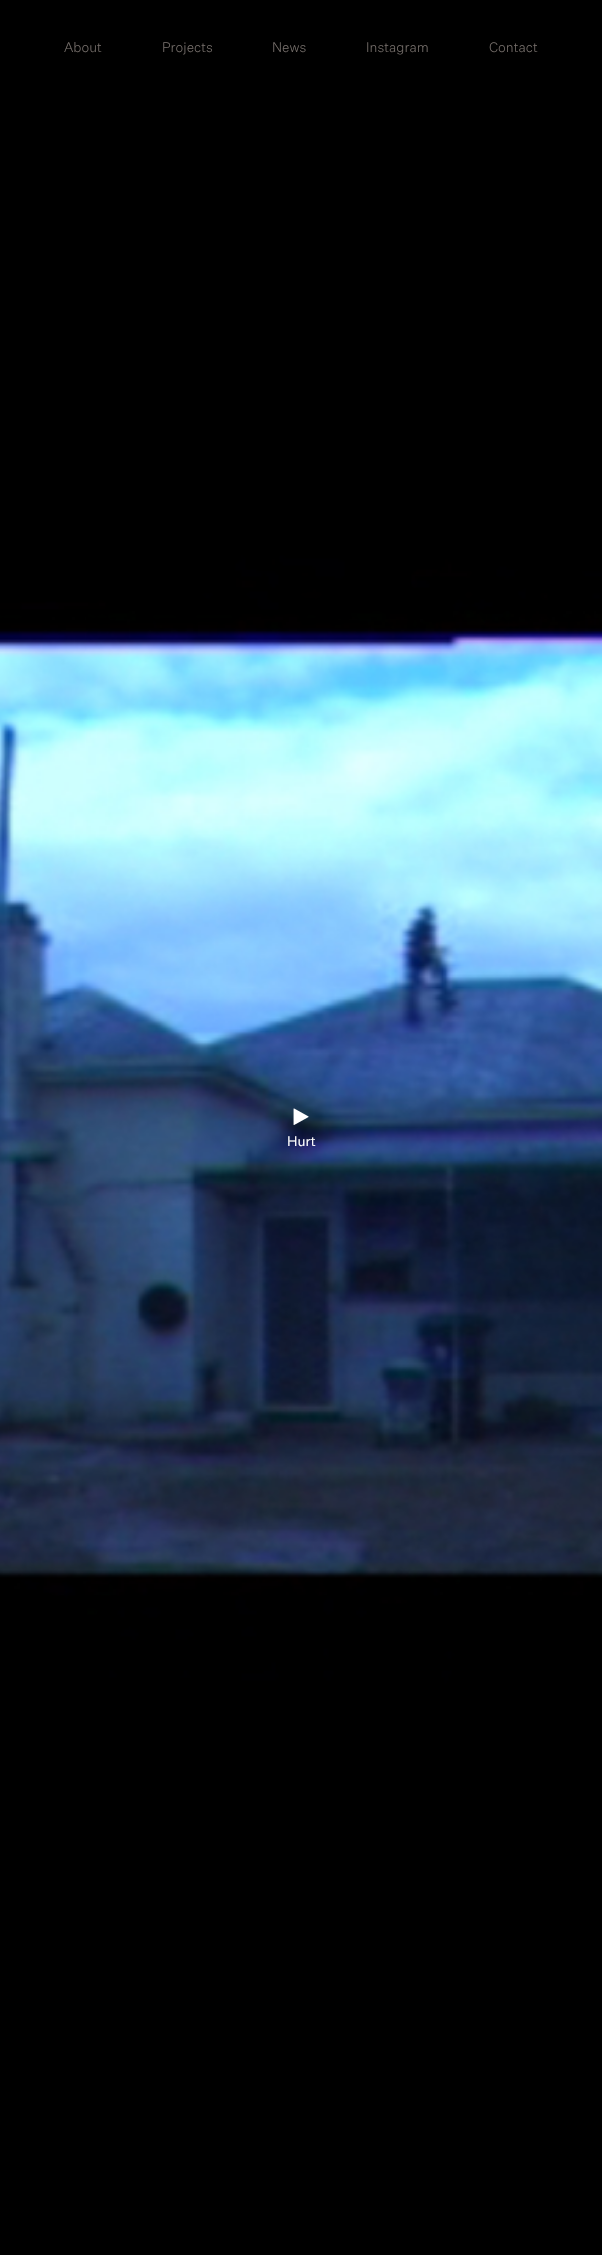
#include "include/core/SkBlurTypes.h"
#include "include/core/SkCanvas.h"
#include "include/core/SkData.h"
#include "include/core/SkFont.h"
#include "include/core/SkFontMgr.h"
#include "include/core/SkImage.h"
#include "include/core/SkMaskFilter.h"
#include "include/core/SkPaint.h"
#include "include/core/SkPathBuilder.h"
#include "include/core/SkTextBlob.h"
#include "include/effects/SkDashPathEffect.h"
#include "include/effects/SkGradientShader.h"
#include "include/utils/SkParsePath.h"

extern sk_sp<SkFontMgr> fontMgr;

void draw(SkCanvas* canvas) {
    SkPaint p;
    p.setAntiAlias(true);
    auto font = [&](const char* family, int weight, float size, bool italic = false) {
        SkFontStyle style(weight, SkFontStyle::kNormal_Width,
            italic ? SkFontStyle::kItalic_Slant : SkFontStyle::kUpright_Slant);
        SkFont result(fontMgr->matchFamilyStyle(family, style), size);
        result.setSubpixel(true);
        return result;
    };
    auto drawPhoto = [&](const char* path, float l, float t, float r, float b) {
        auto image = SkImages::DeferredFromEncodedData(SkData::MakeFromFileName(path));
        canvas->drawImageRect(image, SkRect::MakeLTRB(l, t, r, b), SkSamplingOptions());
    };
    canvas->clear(0xFFFFFFFF);
    drawPhoto("media/1.png", 0, 0, 602, 2255);
    auto font1 = font("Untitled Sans", 300, 13.5f);
    p.setColor(0xFF756E6A);
    {
        const struct { const char* s; float x, y; } items[] = {
            {"About", 64, 52},
            {"Projects", 162, 52},
            {"News", 272, 52},
            {"Instagram", 366, 52},
            {"Contact", 489, 52},
        };
        for (auto [s, x, y] : items) {
            canvas->drawString(s, x, y, font1, p);
        }
    }
    drawPhoto("media/2.png", 293, 1108, 309, 1125);
    auto font2 = font("Untitled Sans", 400, 13.5f);
    p.setColor(0xFFFFFFFF);
    canvas->drawString("Hurt", 287, 1146, font2, p);
}
